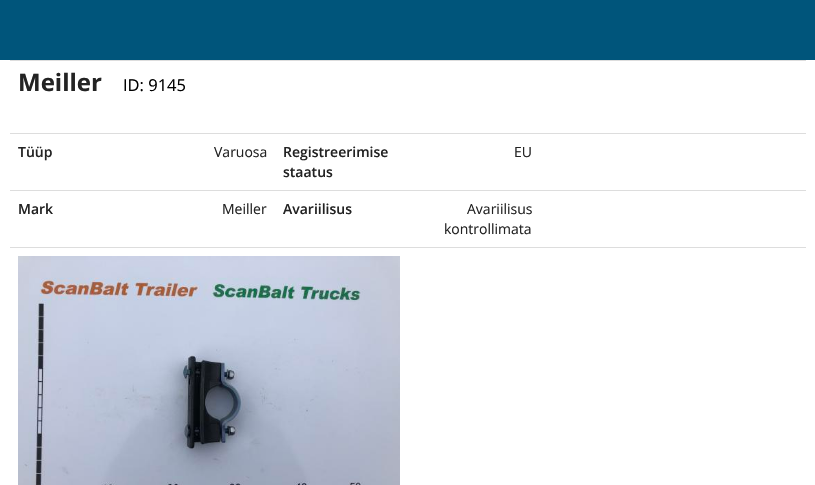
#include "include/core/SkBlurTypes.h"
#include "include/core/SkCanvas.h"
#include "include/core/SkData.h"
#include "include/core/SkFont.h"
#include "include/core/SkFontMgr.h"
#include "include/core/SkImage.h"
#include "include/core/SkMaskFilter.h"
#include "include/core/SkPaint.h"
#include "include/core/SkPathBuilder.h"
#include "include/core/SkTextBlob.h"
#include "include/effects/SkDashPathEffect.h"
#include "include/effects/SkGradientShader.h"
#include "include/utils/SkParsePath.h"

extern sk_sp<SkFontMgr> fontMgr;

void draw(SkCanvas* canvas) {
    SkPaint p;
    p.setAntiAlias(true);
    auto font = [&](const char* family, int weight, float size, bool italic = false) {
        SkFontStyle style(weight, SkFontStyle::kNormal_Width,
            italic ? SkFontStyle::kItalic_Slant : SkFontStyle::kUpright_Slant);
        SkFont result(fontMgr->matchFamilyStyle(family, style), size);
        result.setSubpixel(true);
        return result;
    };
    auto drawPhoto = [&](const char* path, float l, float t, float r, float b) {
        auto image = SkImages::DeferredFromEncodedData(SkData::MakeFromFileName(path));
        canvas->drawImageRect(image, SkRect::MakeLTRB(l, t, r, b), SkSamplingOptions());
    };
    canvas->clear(0xFF00557B);
    p.setColor(0xFFFFFFFF);
    canvas->drawRect(SkRect::MakeLTRB(0, 60, 815, 485), p);
    p.setColor(0xFFDDDDDD);
    canvas->drawRect(SkRect::MakeLTRB(10, 60, 806, 61), p);
    auto font1 = font("Open Sans", 700, 24);
    p.setColor(0xFF232323);
    canvas->drawString("Meiller", 18, 91, font1, p);
    auto font2 = font("Open Sans", 400, 16.5f);
    p.setColor(0xFF000000);
    canvas->drawString("ID: 9145", 123, 91, font2, p);
    p.setColor(0xFFDDDDDD);
    canvas->drawRect(SkRect::MakeLTRB(10, 133, 806, 134), p);
    auto font3 = font("Open Sans", 600, 14);
    p.setColor(0xFF232323);
    canvas->drawString("Tüüp", 18, 157, font3, p);
    auto font4 = font("Open Sans", 400, 14);
    canvas->drawString("Varuosa", 214, 157, font4, p);
    canvas->drawString("Registreerimise", 283, 157, font3, p);
    canvas->drawString("staatus", 283, 177, font3, p);
    canvas->drawString("EU", 514, 157, font4, p);
    p.setColor(0xFFDDDDDD);
    canvas->drawRect(SkRect::MakeLTRB(10, 190, 806, 191), p);
    p.setColor(0xFF232323);
    canvas->drawString("Mark", 18, 214, font3, p);
    canvas->drawString("Meiller", 222, 214, font4, p);
    canvas->drawString("Avariilisus", 283, 214, font3, p);
    canvas->drawString("Avariilisus", 467, 214, font4, p);
    canvas->drawString("kontrollimata", 444, 234, font4, p);
    p.setColor(0xFFDDDDDD);
    canvas->drawRect(SkRect::MakeLTRB(10, 247, 806, 248), p);
    drawPhoto("media/1.png", 18, 256, 400, 485);
}
